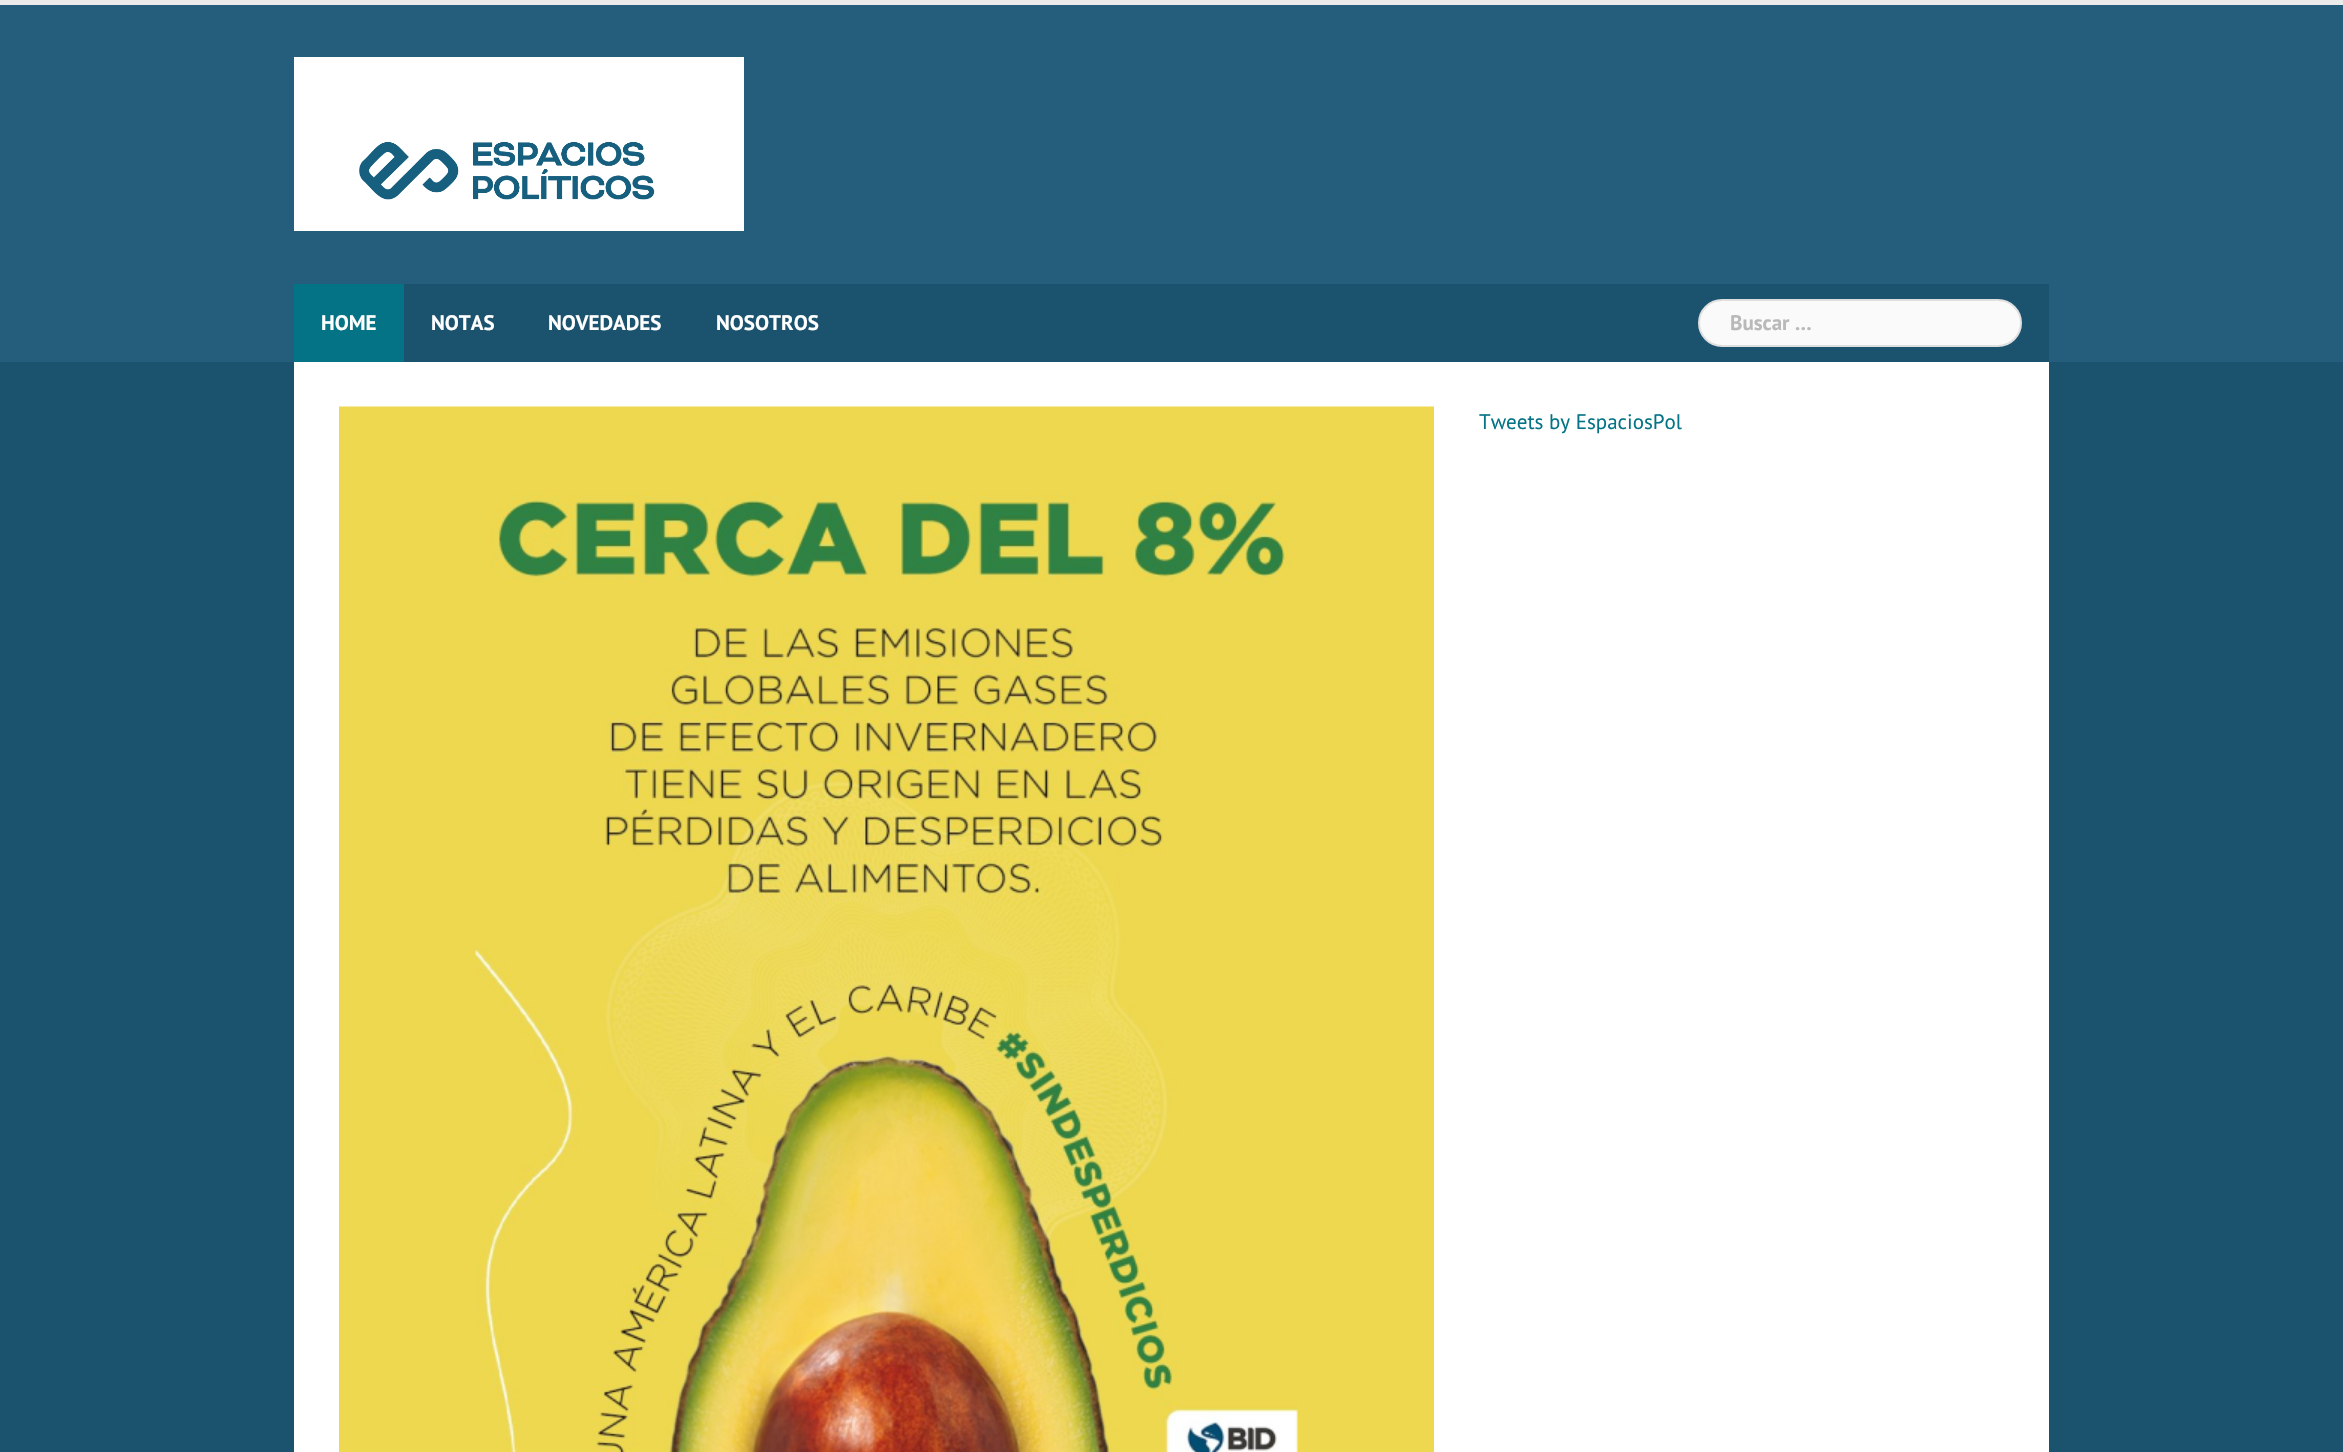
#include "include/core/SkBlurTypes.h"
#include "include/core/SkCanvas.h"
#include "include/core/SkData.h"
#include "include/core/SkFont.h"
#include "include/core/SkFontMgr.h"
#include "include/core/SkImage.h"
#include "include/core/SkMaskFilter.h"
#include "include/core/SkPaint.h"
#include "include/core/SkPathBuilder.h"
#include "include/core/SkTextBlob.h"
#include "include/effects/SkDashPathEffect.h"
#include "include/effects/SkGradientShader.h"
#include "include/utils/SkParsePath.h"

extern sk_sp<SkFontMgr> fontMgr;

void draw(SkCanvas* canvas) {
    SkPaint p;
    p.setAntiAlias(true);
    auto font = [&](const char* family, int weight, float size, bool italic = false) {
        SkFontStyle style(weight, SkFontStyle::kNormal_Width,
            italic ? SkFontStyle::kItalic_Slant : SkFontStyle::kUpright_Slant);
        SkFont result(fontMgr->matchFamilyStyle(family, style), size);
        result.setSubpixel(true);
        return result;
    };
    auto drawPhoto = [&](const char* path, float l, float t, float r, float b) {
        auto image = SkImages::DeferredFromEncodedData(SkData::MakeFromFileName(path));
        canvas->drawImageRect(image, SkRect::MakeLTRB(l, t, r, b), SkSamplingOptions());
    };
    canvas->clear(0xFF1B536F);
    p.setColor(0xFFEBEBEB);
    canvas->drawRect(SkRect::MakeLTRB(0, 0, 2343, 5), p);
    p.setColor(0xFF245E7C);
    canvas->drawRect(SkRect::MakeLTRB(0, 5, 2343, 362), p);
    drawPhoto("media/1.png", 294, 57, 744, 231);
    p.setColor(0xFF1B536F);
    canvas->drawRect(SkRect::MakeLTRB(404, 284, 2049, 362), p);
    p.setColor(0xFF037385);
    canvas->drawRect(SkRect::MakeLTRB(294, 284, 404, 362), p);
    auto font1 = font("PT Sans", 700, 21);
    p.setColor(0xFFFFFFFF);
    {
        const struct { const char* s; float x, y; } items[] = {
            {"HOME", 321, 330},
            {"NOTAS", 431, 330},
            {"NOVEDADES", 548, 330},
            {"NOSOTROS", 716, 330},
        };
        for (auto [s, x, y] : items) {
            canvas->drawString(s, x, y, font1, p);
        }
    }
    p.setColor(0xFFFAFAFA);
    canvas->drawRoundRect(SkRect::MakeLTRB(1699, 300, 2021, 346), 23, 23, p);
    p.setStyle(SkPaint::kStroke_Style);
    p.setStrokeWidth(2);
    p.setColor(0xFFDFDFDF);
    canvas->drawRoundRect(SkRect::MakeLTRB(1699, 300, 2021, 346), 23, 23, p);
    p.setStyle(SkPaint::kFill_Style);
    p.setColor(0xFFB9B9B9);
    canvas->drawString("Buscar …", 1730, 330, font1, p);
    p.setColor(0xFFFFFFFF);
    canvas->drawRect(SkRect::MakeLTRB(294, 362, 2049, 1452), p);
    drawPhoto("media/2.png", 339, 406, 1434, 1452);
    auto font2 = font("PT Sans", 400, 21);
    p.setColor(0xFF037385);
    canvas->drawString("Tweets by EspaciosPol", 1479, 429, font2, p);
}
